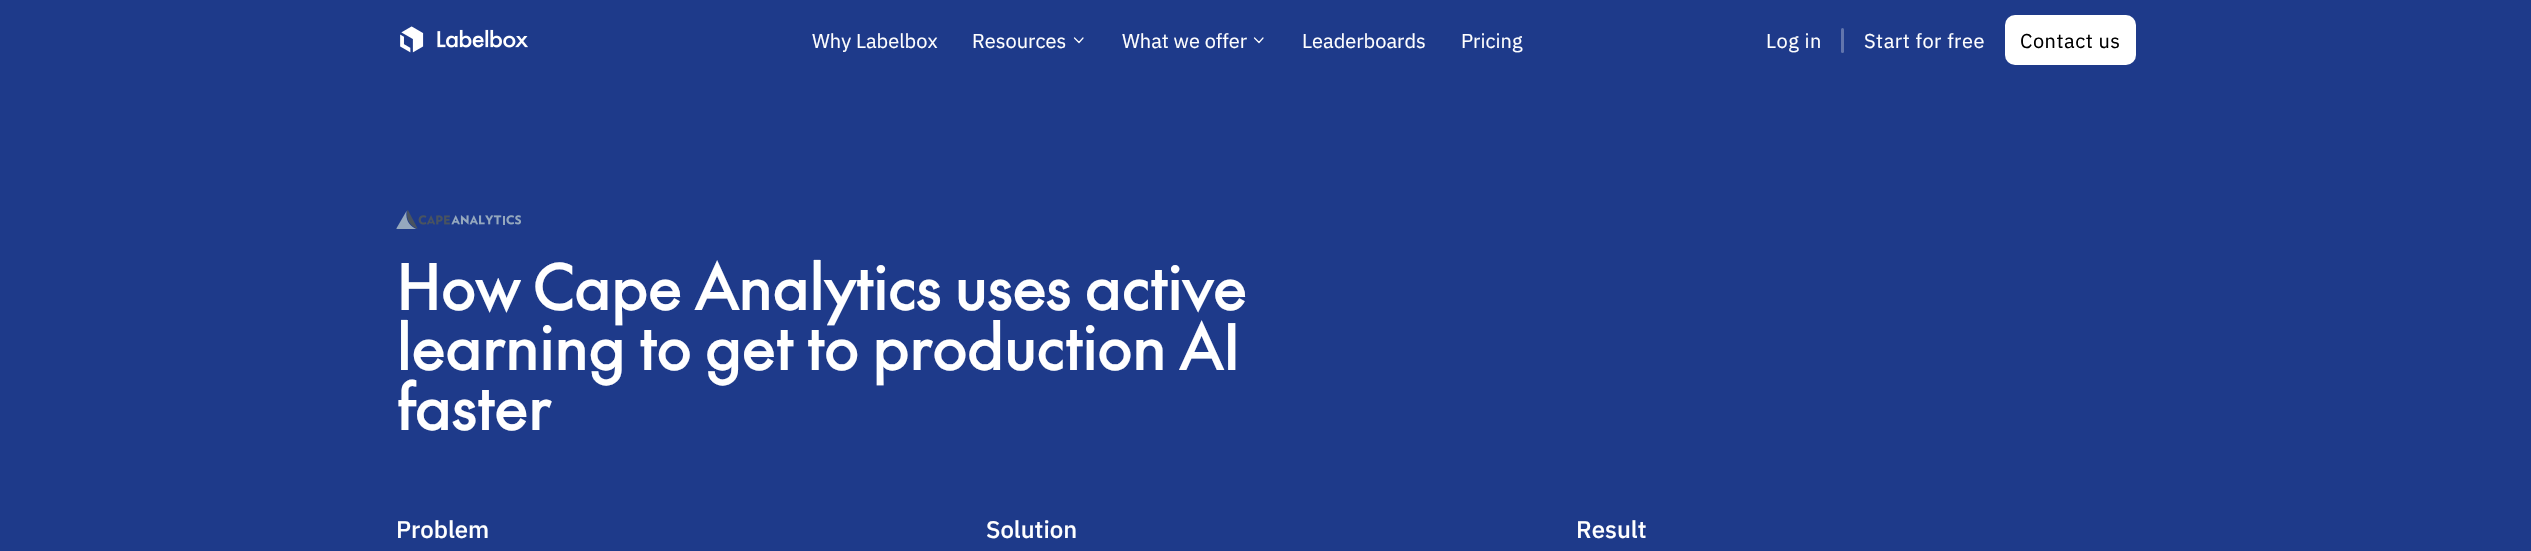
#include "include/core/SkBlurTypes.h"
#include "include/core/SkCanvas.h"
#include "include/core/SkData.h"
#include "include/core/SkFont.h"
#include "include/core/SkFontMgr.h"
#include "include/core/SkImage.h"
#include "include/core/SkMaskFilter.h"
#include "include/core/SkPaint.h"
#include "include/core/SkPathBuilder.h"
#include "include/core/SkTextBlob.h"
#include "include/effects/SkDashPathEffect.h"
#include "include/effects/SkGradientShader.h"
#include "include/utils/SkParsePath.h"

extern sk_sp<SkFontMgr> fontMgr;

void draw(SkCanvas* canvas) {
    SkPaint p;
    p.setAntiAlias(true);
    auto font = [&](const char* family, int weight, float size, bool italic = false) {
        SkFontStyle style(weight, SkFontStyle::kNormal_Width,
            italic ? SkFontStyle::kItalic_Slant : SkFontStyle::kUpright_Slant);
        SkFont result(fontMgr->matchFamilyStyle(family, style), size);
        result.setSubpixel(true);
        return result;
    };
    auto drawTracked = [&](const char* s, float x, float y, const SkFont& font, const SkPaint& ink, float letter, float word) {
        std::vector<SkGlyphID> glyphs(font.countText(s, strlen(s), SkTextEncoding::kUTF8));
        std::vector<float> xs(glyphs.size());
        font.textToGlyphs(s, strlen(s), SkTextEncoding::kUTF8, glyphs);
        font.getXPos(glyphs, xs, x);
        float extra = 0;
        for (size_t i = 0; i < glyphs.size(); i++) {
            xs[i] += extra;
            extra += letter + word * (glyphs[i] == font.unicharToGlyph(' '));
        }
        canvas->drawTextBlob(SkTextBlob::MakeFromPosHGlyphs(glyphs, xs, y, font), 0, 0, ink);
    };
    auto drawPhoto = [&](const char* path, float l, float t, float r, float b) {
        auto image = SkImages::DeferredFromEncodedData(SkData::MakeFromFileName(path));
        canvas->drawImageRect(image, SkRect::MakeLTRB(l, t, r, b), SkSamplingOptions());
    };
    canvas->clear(0xFF1E3A8A);
    drawPhoto("media/1.png", 400, 26, 528, 53);
    auto font1 = font("IBM Plex Sans", 400, 20);
    p.setColor(0xFFFFFFFF);
    canvas->drawString("Why Labelbox", 812, 48, font1, p);
    canvas->drawString("Resources", 972, 48, font1, p);
    p.setStyle(SkPaint::kStroke_Style);
    p.setStrokeWidth(1.2f);
    p.setStrokeCap(SkPaint::kRound_Cap);
    p.setStrokeJoin(SkPaint::kRound_Join);
    canvas->drawPath(SkPathBuilder().moveTo(1083, 38).lineTo(1079, 42.5f).lineTo(1074.5f, 38).detach(), p);
    p.setStyle(SkPaint::kFill_Style);
    canvas->drawString("What we offer", 1122, 48, font1, p);
    p.setStyle(SkPaint::kStroke_Style);
    canvas->drawPath(SkPathBuilder().moveTo(1263, 38).lineTo(1259, 42.5f).lineTo(1254.5f, 38).detach(), p);
    p.setStyle(SkPaint::kFill_Style);
    canvas->drawString("Leaderboards", 1302, 48, font1, p);
    canvas->drawString("Pricing", 1461, 48, font1, p);
    drawTracked("Log in", 1766, 48, font1, p, 0.5f, 0);
    p.setColor(0xFF6275AD);
    canvas->drawRoundRect(SkRect::MakeLTRB(1841, 28, 1844, 53), 1.5f, 1.5f, p);
    p.setColor(0xFFFFFFFF);
    drawTracked("Start for free", 1864, 48, font1, p, 0.5f, 0);
    canvas->drawRoundRect(SkRect::MakeLTRB(2005, 15, 2136, 65), 10, 10, p);
    p.setColor(0xFF000000);
    drawTracked("Contact us", 2020, 48, font1, p, 0.5f, 0);
    drawPhoto("media/2.png", 396, 210, 521, 229);
    auto font2 = font("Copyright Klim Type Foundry", 700, 60);
    p.setColor(0xFFFFFFFF);
    {
        const struct { const char* s; float x, y; } items[] = {
            {"How Cape Analytics uses active", 396, 310},
            {"learning to get to production AI", 396, 370},
            {"faster", 396, 430},
        };
        for (auto [s, x, y] : items) {
            canvas->drawString(s, x, y, font2, p);
        }
    }
    auto font3 = font("IBM Plex Sans", 500, 24);
    {
        const struct { const char* s; float x, y; } items[] = {
            {"Problem", 396, 538},
            {"Solution", 986, 538},
            {"Result", 1576, 538},
        };
        for (auto [s, x, y] : items) {
            canvas->drawString(s, x, y, font3, p);
        }
    }
}
